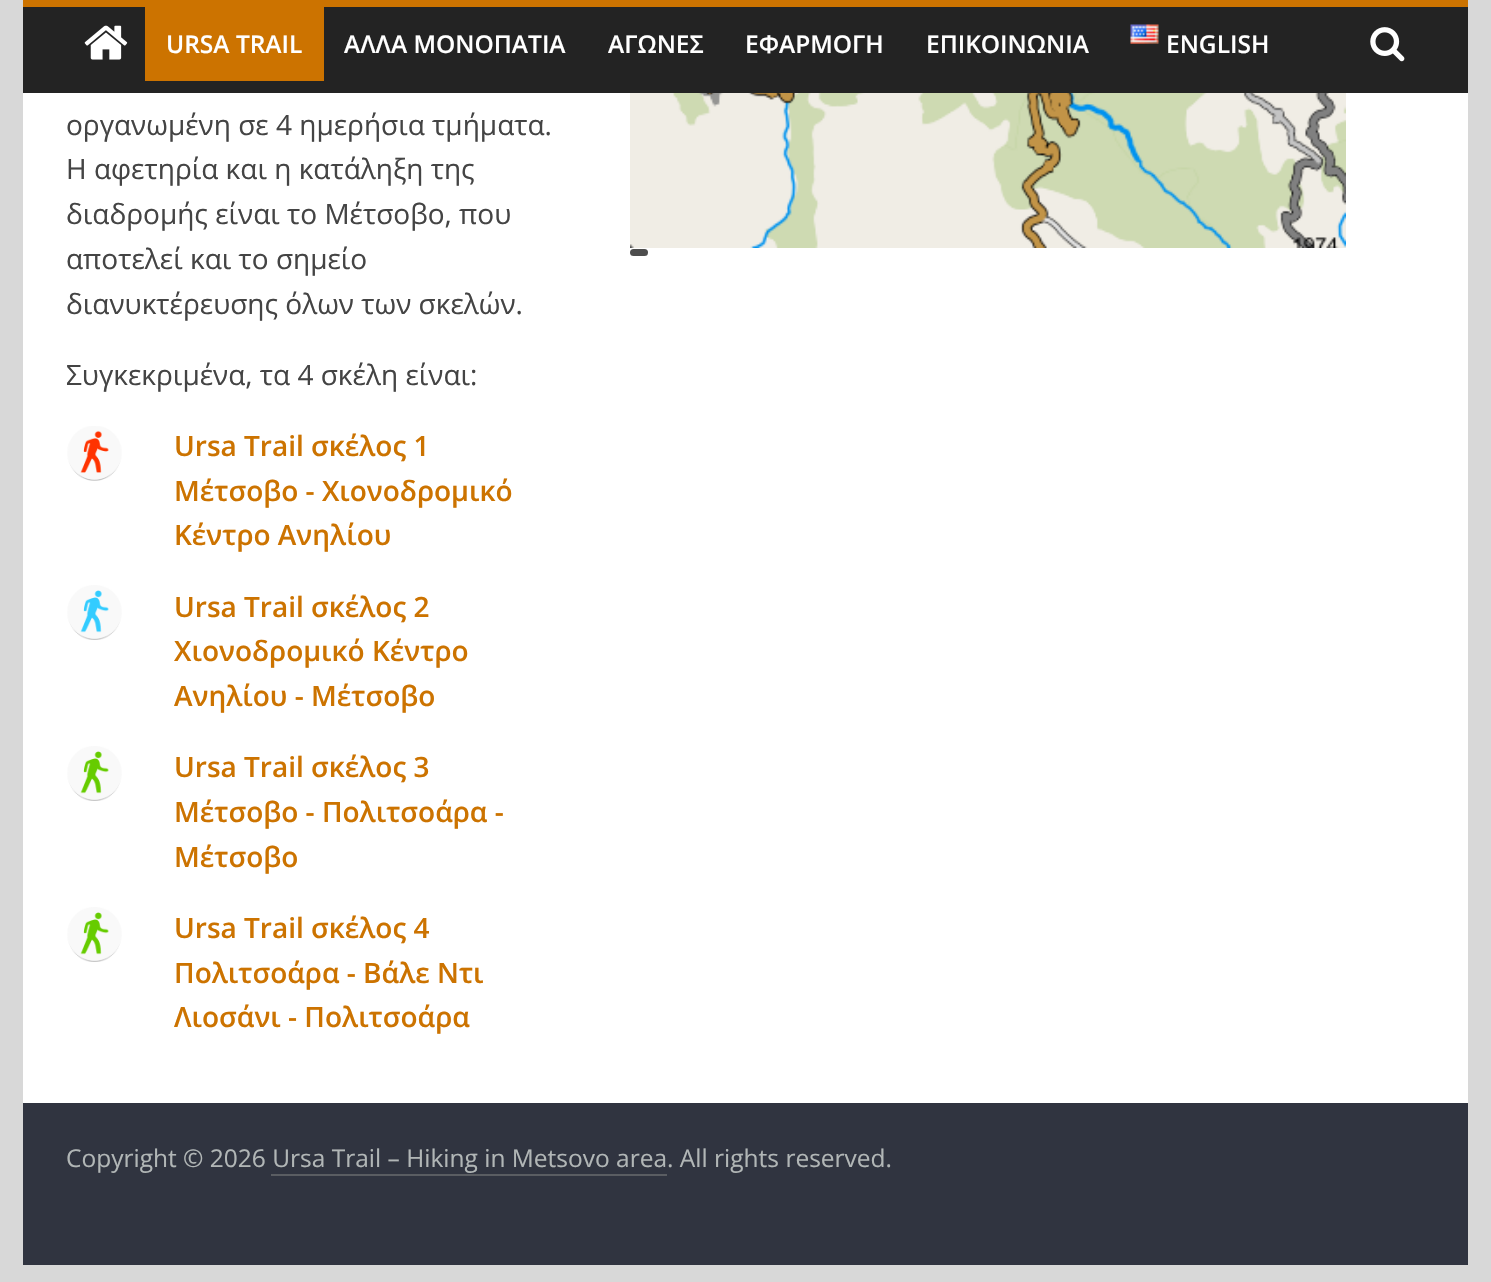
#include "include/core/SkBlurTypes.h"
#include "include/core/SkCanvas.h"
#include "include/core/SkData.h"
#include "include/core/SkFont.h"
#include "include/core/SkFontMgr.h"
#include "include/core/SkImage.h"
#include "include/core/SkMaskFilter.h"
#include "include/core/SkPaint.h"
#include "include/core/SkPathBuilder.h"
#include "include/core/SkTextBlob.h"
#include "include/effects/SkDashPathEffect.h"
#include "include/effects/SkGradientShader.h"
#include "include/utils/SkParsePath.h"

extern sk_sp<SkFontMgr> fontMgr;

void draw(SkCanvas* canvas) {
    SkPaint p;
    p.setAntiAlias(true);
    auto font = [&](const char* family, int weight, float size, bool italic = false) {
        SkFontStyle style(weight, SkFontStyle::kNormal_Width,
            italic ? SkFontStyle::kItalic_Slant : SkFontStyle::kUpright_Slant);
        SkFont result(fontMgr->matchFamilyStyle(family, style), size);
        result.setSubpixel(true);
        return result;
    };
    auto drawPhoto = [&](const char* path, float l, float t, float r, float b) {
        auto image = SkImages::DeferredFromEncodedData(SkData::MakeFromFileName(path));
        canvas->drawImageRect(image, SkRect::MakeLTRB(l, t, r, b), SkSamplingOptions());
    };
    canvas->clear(0xFFD8D8D8);
    p.setColor(0xFF232323);
    canvas->drawRect(SkRect::MakeLTRB(23, 7, 1468, 93), p);
    p.setColor(0xFFCC7300);
    canvas->drawRect(SkRect::MakeLTRB(23, 0, 1468, 7), p);
    drawPhoto("media/1.png", 84, 25, 128, 60);
    canvas->drawRect(SkRect::MakeLTRB(145, 7, 324, 81), p);
    auto font1 = font("Open Sans", 600, 24.5f);
    p.setColor(0xFFFFFFFF);
    {
        const struct { const char* s; float x, y; } items[] = {
            {"URSA TRAIL", 166, 53},
            {"ΑΛΛΑ ΜΟΝΟΠΑΤΙΑ", 344, 53},
            {"ΑΓΩΝΕΣ", 608, 53},
            {"ΕΦΑΡΜΟΓΗ", 745, 53},
            {"ΕΠΙΚΟΙΝΩΝΙΑ", 926, 53},
        };
        for (auto [s, x, y] : items) {
            canvas->drawString(s, x, y, font1, p);
        }
    }
    drawPhoto("media/2.png", 1130, 24, 1159, 44);
    canvas->drawString("ENGLISH", 1166, 53, font1, p);
    drawPhoto("media/3.png", 1370, 27, 1405, 62);
    canvas->drawRect(SkRect::MakeLTRB(23, 93, 1468, 1103), p);
    auto font2 = font("Open Sans", 400, 28);
    p.setColor(0xFF444444);
    {
        const struct { const char* s; float x, y; } items[] = {
            {"οργανωμένη σε 4 ημερήσια τμήματα.", 66, 135},
            {"Η αφετηρία και η κατάληξη της", 66, 179},
            {"διαδρομής είναι το Μέτσοβο, που", 66, 224},
            {"αποτελεί και το σημείο", 66, 269},
            {"διανυκτέρευσης όλων των σκελών.", 66, 314},
            {"Συγκεκριμένα, τα 4 σκέλη είναι:", 66, 385},
        };
        for (auto [s, x, y] : items) {
            canvas->drawString(s, x, y, font2, p);
        }
    }
    drawPhoto("media/4.png", 67, 426, 122, 481);
    auto font3 = font("Open Sans", 600, 28);
    p.setColor(0xFFCC7300);
    {
        const struct { const char* s; float x, y; } items[] = {
            {"Ursa Trail σκέλος 1", 174, 456},
            {"Μέτσοβο - Χιονοδρομικό", 174, 501},
            {"Κέντρο Ανηλίου", 174, 545},
        };
        for (auto [s, x, y] : items) {
            canvas->drawString(s, x, y, font3, p);
        }
    }
    drawPhoto("media/5.png", 67, 585, 122, 640);
    {
        const struct { const char* s; float x, y; } items[] = {
            {"Ursa Trail σκέλος 2", 174, 617},
            {"Χιονοδρομικό Κέντρο", 174, 661},
            {"Ανηλίου - Μέτσοβο", 174, 706},
        };
        for (auto [s, x, y] : items) {
            canvas->drawString(s, x, y, font3, p);
        }
    }
    drawPhoto("media/6.png", 67, 746, 122, 801);
    {
        const struct { const char* s; float x, y; } items[] = {
            {"Ursa Trail σκέλος 3", 174, 777},
            {"Μέτσοβο - Πολιτσοάρα -", 174, 822},
            {"Μέτσοβο", 174, 867},
        };
        for (auto [s, x, y] : items) {
            canvas->drawString(s, x, y, font3, p);
        }
    }
    drawPhoto("media/6.png", 67, 907, 122, 962);
    {
        const struct { const char* s; float x, y; } items[] = {
            {"Ursa Trail σκέλος 4", 174, 938},
            {"Πολιτσοάρα - Βάλε Ντι", 174, 983},
            {"Λιοσάνι - Πολιτσοάρα", 174, 1027},
        };
        for (auto [s, x, y] : items) {
            canvas->drawString(s, x, y, font3, p);
        }
    }
    drawPhoto("media/7.png", 630, 93, 1346, 248);
    p.setColor(0xFF4D4D4D);
    canvas->drawRoundRect(SkRect::MakeLTRB(630, 249, 648, 256), 3.5f, 3.5f, p);
    p.setColor(0xFF303440);
    canvas->drawRect(SkRect::MakeLTRB(23, 1103, 1468, 1265), p);
    auto font4 = font("Open Sans", 400, 24.5f);
    p.setColor(0xFFB1B6B6);
    canvas->drawString("Copyright © 2026 Ursa Trail – Hiking in Metsovo area. All rights reserved.", 66, 1167, font4, p);
    p.setColor(0xFF5A5D62);
    canvas->drawRect(SkRect::MakeLTRB(271, 1174, 667, 1176), p);
}
